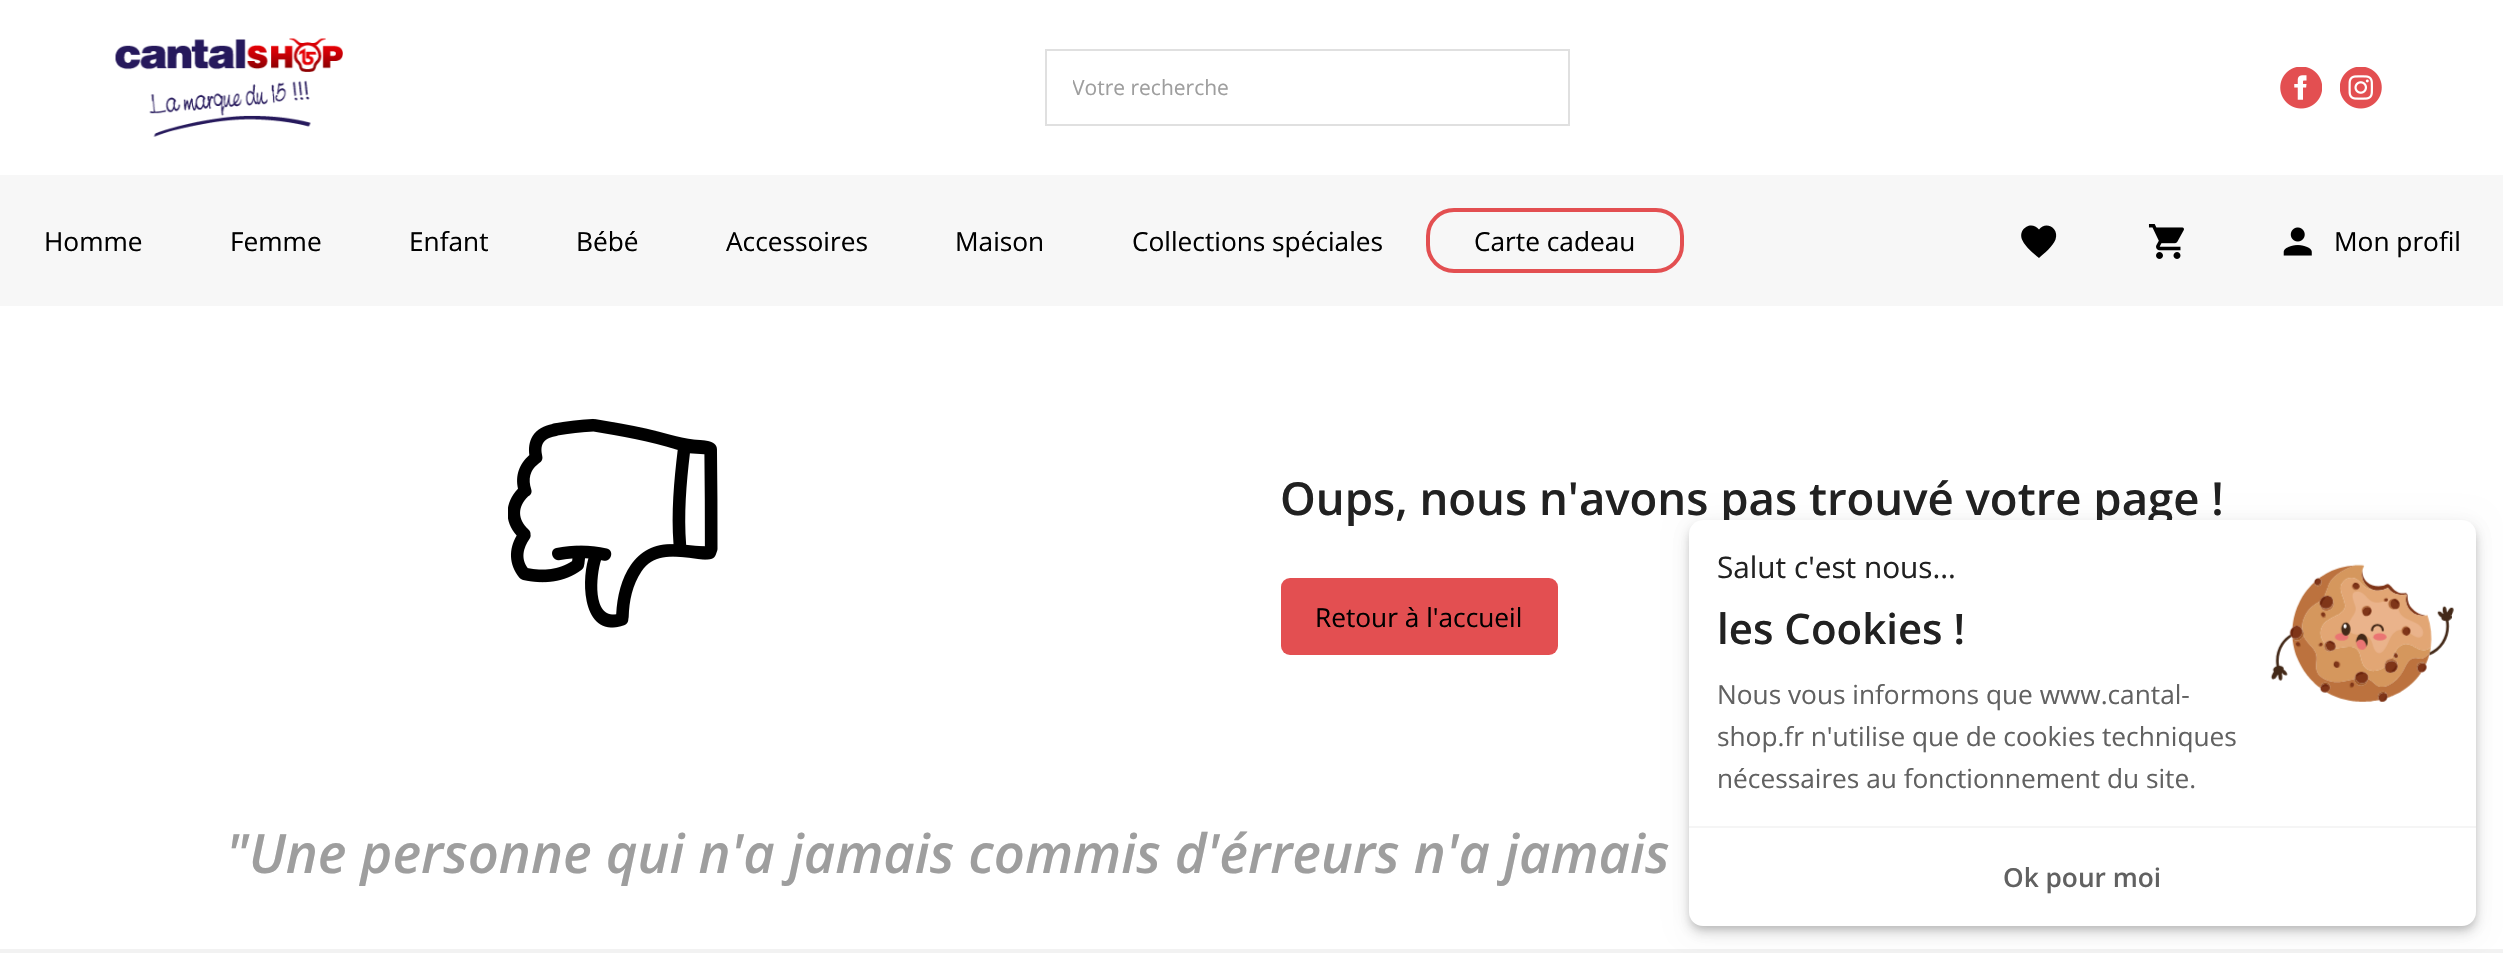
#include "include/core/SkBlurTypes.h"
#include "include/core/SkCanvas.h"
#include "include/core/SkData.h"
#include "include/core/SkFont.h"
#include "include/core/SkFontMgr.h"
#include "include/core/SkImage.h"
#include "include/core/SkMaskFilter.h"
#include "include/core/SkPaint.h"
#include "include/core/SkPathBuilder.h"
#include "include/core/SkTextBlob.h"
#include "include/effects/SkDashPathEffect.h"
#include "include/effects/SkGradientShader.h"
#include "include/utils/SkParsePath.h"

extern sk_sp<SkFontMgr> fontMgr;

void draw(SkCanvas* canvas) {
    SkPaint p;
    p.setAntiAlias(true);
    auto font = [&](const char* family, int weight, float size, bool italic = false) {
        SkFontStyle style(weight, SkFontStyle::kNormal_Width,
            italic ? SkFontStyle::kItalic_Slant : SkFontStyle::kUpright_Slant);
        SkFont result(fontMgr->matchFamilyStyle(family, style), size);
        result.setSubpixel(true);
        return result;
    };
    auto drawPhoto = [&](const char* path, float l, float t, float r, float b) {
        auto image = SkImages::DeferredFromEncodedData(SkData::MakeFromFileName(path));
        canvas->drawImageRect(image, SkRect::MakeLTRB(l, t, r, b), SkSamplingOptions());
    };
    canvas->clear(0xFFFFFFFF);
    drawPhoto("media/1.png", 115, 38, 343, 137);
    p.setStyle(SkPaint::kStroke_Style);
    p.setStrokeWidth(2);
    p.setColor(0xFFE0E0E0);
    canvas->drawRect(SkRect::MakeLTRB(1046, 50, 1569, 125), p);
    canvas->save();
    canvas->clipRect(SkRect::MakeLTRB(1073, 74, 1542, 103));
    auto font1 = font("Open Sans", 400, 21);
    p.setStyle(SkPaint::kFill_Style);
    p.setColor(0xFF9E9E9E);
    canvas->drawString("Votre recherche", 1072, 95, font1, p);
    canvas->restore();
    drawPhoto("media/2.png", 2280, 67, 2322, 109);
    drawPhoto("media/3.png", 2340, 67, 2382, 109);
    p.setColor(0xFFF7F7F7);
    canvas->drawRect(SkRect::MakeLTRB(0, 175, 2503, 306), p);
    auto font2 = font("Open Sans", 400, 26.25f);
    p.setColor(0xFF000000);
    {
        const struct { const char* s; float x, y; } items[] = {
            {"Homme", 44, 251},
            {"Femme", 230, 251},
            {"Enfant", 409, 251},
            {"Bébé", 576, 251},
            {"Accessoires", 726, 251},
            {"Maison", 955, 251},
            {"Collections spéciales", 1132, 251},
        };
        for (auto [s, x, y] : items) {
            canvas->drawString(s, x, y, font2, p);
        }
    }
    p.setStyle(SkPaint::kStroke_Style);
    p.setStrokeWidth(4);
    p.setColor(0xFFE34F51);
    canvas->drawRoundRect(SkRect::MakeLTRB(1428, 210, 1682, 271), 26, 26, p);
    p.setStyle(SkPaint::kFill_Style);
    p.setColor(0xFF000000);
    canvas->drawString("Carte cadeau", 1474, 251, font2, p);
    canvas->drawPath(SkPathBuilder().moveTo(2039, 258).cubicTo(2033.5f, 253.5f, 2025.5f, 247, 2022.5f, 240.5f).cubicTo(2017, 229.5f, 2031, 220, 2039, 229.5f).cubicTo(2046, 220.5f, 2059.5f, 228.5f, 2055.5f, 239.5f).cubicTo(2052.5f, 247, 2044.5f, 253, 2039, 258).close().detach(), p);
    drawPhoto("media/4.png", 2148, 224, 2184, 259);
    drawPhoto("media/5.png", 2283, 227, 2312, 256);
    canvas->drawString("Mon profil", 2334, 251, font2, p);
    drawPhoto("media/6.png", 508, 418, 718, 628);
    auto font3 = font("Open Sans", 600, 45.5f);
    p.setColor(0xFF212121);
    canvas->drawString("Oups, nous n'avons pas trouvé votre page !", 1280, 515, font3, p);
    p.setColor(0xFFE34F51);
    canvas->drawRoundRect(SkRect::MakeLTRB(1281, 578, 1558, 655), 9, 9, p);
    p.setColor(0xFF000000);
    canvas->drawString("Retour à l'accueil", 1315, 627, font2, p);
    auto font4 = font("Open Sans", 600, 54.25f, true);
    p.setColor(0xFF9E9E9E);
    canvas->drawString("\"Une personne qui n'a jamais commis d'érreurs n'a jamais", 226, 873, font4, p);
    p.setColor(0xFFF2F2F2);
    canvas->drawRect(SkRect::MakeLTRB(0, 949, 2503, 953), p);
    p.setColor(0x0D000000);
    p.setMaskFilter(SkMaskFilter::MakeBlur(kNormal_SkBlurStyle, 12));
    canvas->drawRoundRect(SkRect::MakeLTRB(1689, 522, 2476, 928), 14, 14, p);
    p.setMaskFilter(nullptr);
    p.setColor(0x14000000);
    p.setMaskFilter(SkMaskFilter::MakeBlur(kNormal_SkBlurStyle, 7));
    canvas->drawRoundRect(SkRect::MakeLTRB(1689, 529, 2476, 935), 14, 14, p);
    p.setMaskFilter(nullptr);
    p.setColor(0x33000000);
    p.setMaskFilter(SkMaskFilter::MakeBlur(kNormal_SkBlurStyle, 4.5f));
    canvas->drawRoundRect(SkRect::MakeLTRB(1691, 527, 2475, 929), 12, 12, p);
    p.setMaskFilter(nullptr);
    p.setColor(0xFFFFFFFF);
    canvas->drawRoundRect(SkRect::MakeLTRB(1689, 520, 2476, 926), 14, 14, p);
    drawPhoto("media/7.png", 2270, 564, 2454, 702);
    auto font5 = font("Open Sans", 400, 29.75f);
    p.setColor(0xFF212121);
    canvas->drawString("Salut c'est nous...", 1717, 578, font5, p);
    auto font6 = font("Open Sans", 600, 42);
    canvas->drawString("les Cookies !", 1717, 644, font6, p);
    p.setColor(0xFF616161);
    {
        const struct { const char* s; float x, y; } items[] = {
            {"Nous vous informons que www.cantal-", 1717, 704},
            {"shop.fr n'utilise que de cookies techniques", 1717, 746},
            {"nécessaires au fonctionnement du site.", 1717, 788},
        };
        for (auto [s, x, y] : items) {
            canvas->drawString(s, x, y, font2, p);
        }
    }
    p.setColor(0xFFF5F5F5);
    canvas->drawRect(SkRect::MakeLTRB(1689, 826, 2476, 828), p);
    auto font7 = font("Open Sans", 600, 26.25f);
    p.setColor(0xFF616161);
    canvas->drawString("Ok pour moi", 2003, 887, font7, p);
}
